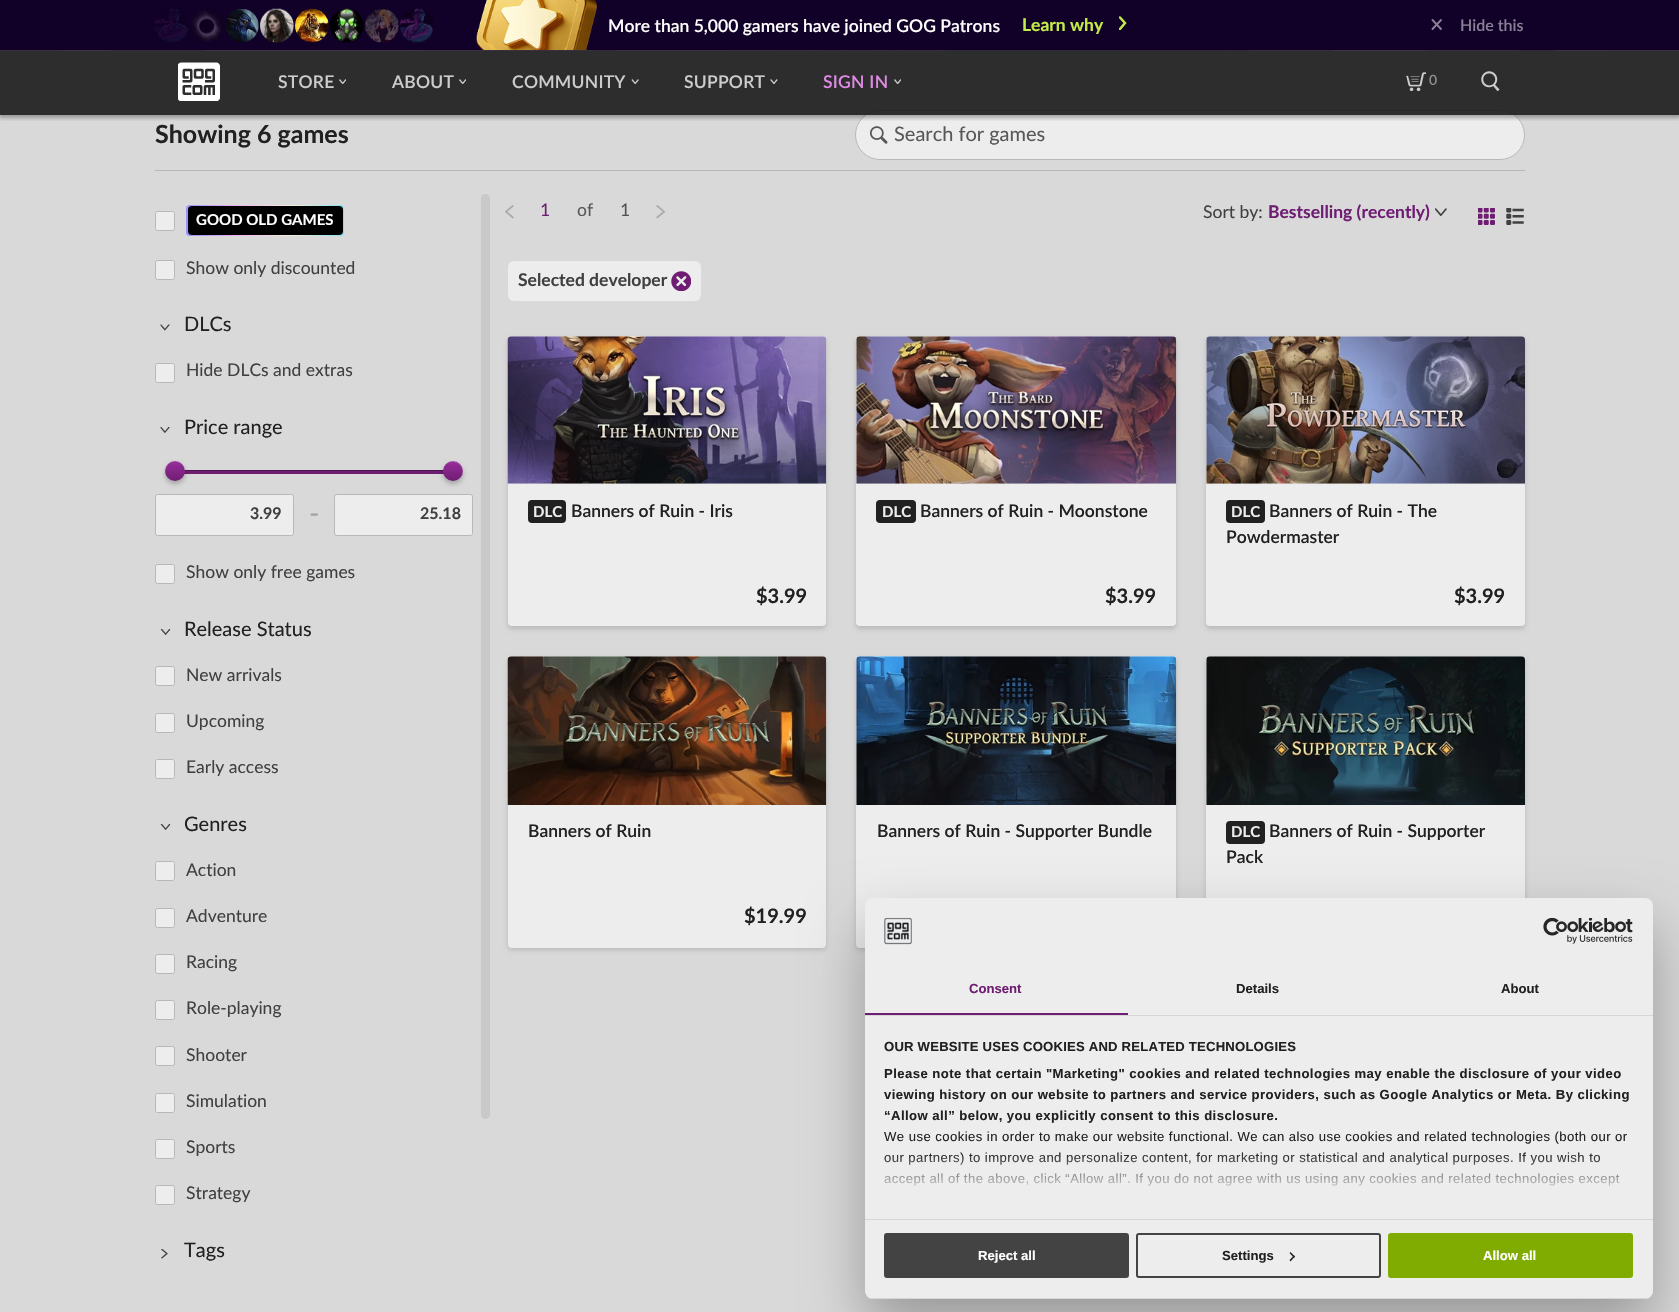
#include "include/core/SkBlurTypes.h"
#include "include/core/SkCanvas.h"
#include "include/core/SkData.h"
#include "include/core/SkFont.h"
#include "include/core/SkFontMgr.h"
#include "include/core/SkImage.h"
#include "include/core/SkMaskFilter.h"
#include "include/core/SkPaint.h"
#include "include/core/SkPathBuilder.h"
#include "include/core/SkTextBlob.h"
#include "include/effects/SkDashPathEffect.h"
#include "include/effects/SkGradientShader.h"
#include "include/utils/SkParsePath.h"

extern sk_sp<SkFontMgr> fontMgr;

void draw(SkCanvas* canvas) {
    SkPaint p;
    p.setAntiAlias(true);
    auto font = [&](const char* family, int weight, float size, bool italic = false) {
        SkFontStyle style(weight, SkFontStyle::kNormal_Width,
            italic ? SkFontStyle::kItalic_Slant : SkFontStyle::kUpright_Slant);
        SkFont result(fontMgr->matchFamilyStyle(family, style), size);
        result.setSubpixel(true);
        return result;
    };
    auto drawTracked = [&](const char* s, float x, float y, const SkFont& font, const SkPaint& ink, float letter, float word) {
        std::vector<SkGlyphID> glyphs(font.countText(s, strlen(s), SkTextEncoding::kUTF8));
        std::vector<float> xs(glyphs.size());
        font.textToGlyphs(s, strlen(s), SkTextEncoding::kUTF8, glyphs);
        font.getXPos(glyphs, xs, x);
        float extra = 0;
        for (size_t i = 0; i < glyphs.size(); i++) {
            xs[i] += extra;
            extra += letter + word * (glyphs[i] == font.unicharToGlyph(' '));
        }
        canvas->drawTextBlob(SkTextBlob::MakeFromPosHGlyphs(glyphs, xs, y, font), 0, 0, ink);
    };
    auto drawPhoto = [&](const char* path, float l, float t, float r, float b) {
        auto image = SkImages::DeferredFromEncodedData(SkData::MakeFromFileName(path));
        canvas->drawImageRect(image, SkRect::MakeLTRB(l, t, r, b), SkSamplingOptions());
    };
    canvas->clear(0xFFD9D9D9);
    p.setColor(0xFFEDEDED);
    canvas->drawRoundRect(SkRect::MakeLTRB(855.5f, 110.5f, 1524.5f, 159.5f), 24.5f, 24.5f, p);
    p.setStyle(SkPaint::kStroke_Style);
    p.setStrokeWidth(1);
    p.setColor(0xFFB8B8B8);
    canvas->drawRoundRect(SkRect::MakeLTRB(855.5f, 110.5f, 1524.5f, 159.5f), 24.5f, 24.5f, p);
    canvas->save();
    canvas->clipRect(SkRect::MakeLTRB(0, 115, 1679, 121));
    p.setStyle(SkPaint::kFill_Style);
    p.setColor(0x4D000000);
    p.setMaskFilter(SkMaskFilter::MakeBlur(kNormal_SkBlurStyle, 2));
    canvas->drawRect(SkRect::MakeLTRB(-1, 45, 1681, 118), p);
    p.setMaskFilter(nullptr);
    canvas->restore();
    p.setColor(0xFF110028);
    canvas->drawRect(SkRect::MakeLTRB(0, 0, 1679, 50), p);
    drawPhoto("media/1.png", 155, 9, 188, 42);
    drawPhoto("media/2.png", 190, 9, 224, 42);
    drawPhoto("media/3.png", 225, 9, 259, 43);
    drawPhoto("media/4.png", 260, 8, 294, 43);
    drawPhoto("media/5.png", 295, 8, 329, 43);
    drawPhoto("media/6.png", 330, 8, 364, 43);
    drawPhoto("media/7.png", 365, 9, 399, 43);
    drawPhoto("media/8.png", 400, 8, 434, 43);
    drawPhoto("media/9.png", 476, 0, 597, 50);
    auto font1 = font("Lato", 600, 17.5f);
    p.setColor(0xFFFFFFFF);
    canvas->drawString("More than 5,000 gamers have joined GOG Patrons", 608, 32, font1, p);
    auto font2 = font("Lato", 700, 17.5f);
    p.setColor(0xFFC3EC47);
    canvas->drawString("Learn why", 1022, 31, font2, p);
    canvas->save();
    canvas->clipRect(SkRect::MakeLTRB(1119, 16, 1128, 30));
    p.setStyle(SkPaint::kStroke_Style);
    p.setStrokeWidth(2.5f);
    p.setStrokeCap(SkPaint::kRound_Cap);
    canvas->drawPath(SkPathBuilder().moveTo(1120, 17.5f).lineTo(1125, 23).lineTo(1120, 29).detach(), p);
    canvas->restore();
    p.setStrokeWidth(1.9f);
    p.setColor(0xFF888094);
    canvas->drawPath(SkPathBuilder().moveTo(1432.5f, 20).lineTo(1441, 29).moveTo(1441, 20).lineTo(1432.5f, 29).detach(), p);
    auto font3 = font("Lato", 600, 16);
    p.setStyle(SkPaint::kFill_Style);
    canvas->drawString("Hide this", 1460, 31, font3, p);
    p.setColor(0xE61A1A1A);
    canvas->drawRect(SkRect::MakeLTRB(0, 50, 1679, 115), p);
    drawPhoto("media/10.png", 0, 50, 1679, 51);
    drawPhoto("media/11.png", 178, 62, 220, 101);
    auto font4 = font("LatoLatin", 600, 17.5f);
    p.setColor(0xFFCCCCCC);
    drawTracked("STORE", 278, 88, font4, p, 0.25f, 0);
    drawPhoto("media/12.png", 339, 79, 346, 84);
    drawTracked("ABOUT", 392, 88, font4, p, 0.25f, 0);
    drawPhoto("media/12.png", 459, 79, 466, 84);
    drawTracked("COMMUNITY", 512, 88, font4, p, 0.25f, 0);
    drawPhoto("media/13.png", 631, 79, 639, 84);
    drawTracked("SUPPORT", 684, 88, font4, p, 0.25f, 0);
    drawPhoto("media/14.png", 770, 79, 778, 84);
    p.setColor(0xFFDE8AE5);
    drawTracked("SIGN IN", 823, 88, font4, p, 0.25f, 0);
    drawPhoto("media/12.png", 894, 79, 901, 84);
    drawPhoto("media/15.png", 1406, 72, 1426, 91);
    auto font5 = font("LatoLatin", 600, 14);
    p.setColor(0xFF8C8C8C);
    drawTracked("0", 1429, 85, font5, p, 0.25f, 0);
    drawPhoto("media/16.png", 1481, 71, 1500, 91);
    p.setColor(0xFFB8B8B8);
    canvas->drawRect(SkRect::MakeLTRB(155, 170, 1525, 171), p);
    auto font6 = font("LatoLatin", 700, 25);
    p.setColor(0xFF212121);
    canvas->drawString("Showing 6 games", 155, 143, font6, p);
    drawPhoto("media/17.png", 870, 126, 888, 144);
    auto font7 = font("LatoLatin", 400, 20);
    p.setColor(0xFF585858);
    canvas->drawString("Search for games", 894, 141, font7, p);
    p.setColor(0xFFEDEDED);
    canvas->drawRoundRect(SkRect::MakeLTRB(155.5f, 211.5f, 174.5f, 230.5f), 2, 2, p);
    p.setStyle(SkPaint::kStroke_Style);
    p.setStrokeWidth(1);
    p.setStrokeCap(SkPaint::kButt_Cap);
    p.setColor(0xFFB8B8B8);
    canvas->drawRoundRect(SkRect::MakeLTRB(155.5f, 211.5f, 174.5f, 230.5f), 2, 2, p);
    p.setStyle(SkPaint::kFill_Style);
    {
        const SkColor colors[] = {0xFF9493FE, 0xFFF3B1F3, 0xFFF2F1D6, 0xFF7EDFF9};
        const float stops[] = {0, 0.33f, 0.67f, 1};
        const SkPoint ends[] = {{186, 221}, {344, 221}};
        p.setShader(SkGradientShader::MakeLinear(ends, colors, stops, 4, SkTileMode::kClamp));
        p.setAlpha(255);
    }
    canvas->drawRoundRect(SkRect::MakeLTRB(186, 205, 344, 236), 4, 4, p);
    p.setShader(nullptr);
    p.setColor(0xFF000000);
    canvas->drawRoundRect(SkRect::MakeLTRB(188, 206, 343, 235), 4, 4, p);
    auto font8 = font("LatoLatin", 700, 15);
    p.setColor(0xFFFFFFFF);
    canvas->drawString("GOOD OLD GAMES", 196, 225, font8, p);
    p.setColor(0xFFEDEDED);
    canvas->drawRoundRect(SkRect::MakeLTRB(155.5f, 260.5f, 174.5f, 279.5f), 2, 2, p);
    p.setStyle(SkPaint::kStroke_Style);
    p.setColor(0xFFB8B8B8);
    canvas->drawRoundRect(SkRect::MakeLTRB(155.5f, 260.5f, 174.5f, 279.5f), 2, 2, p);
    auto font9 = font("LatoLatin", 400, 17.5f);
    p.setStyle(SkPaint::kFill_Style);
    p.setColor(0xFF404040);
    canvas->drawString("Show only discounted", 186, 274, font9, p);
    drawPhoto("media/18.png", 160, 324, 170, 331);
    p.setColor(0xFF212121);
    canvas->drawString("DLCs", 184, 331, font7, p);
    p.setColor(0xFFEDEDED);
    canvas->drawRoundRect(SkRect::MakeLTRB(155.5f, 363.5f, 174.5f, 382.5f), 2, 2, p);
    p.setStyle(SkPaint::kStroke_Style);
    p.setColor(0xFFB8B8B8);
    canvas->drawRoundRect(SkRect::MakeLTRB(155.5f, 363.5f, 174.5f, 382.5f), 2, 2, p);
    p.setStyle(SkPaint::kFill_Style);
    p.setColor(0xFF404040);
    canvas->drawString("Hide DLCs and extras", 186, 376, font9, p);
    drawPhoto("media/19.png", 160, 426, 170, 433);
    p.setColor(0xFF212121);
    canvas->drawString("Price range", 184, 434, font7, p);
    p.setColor(0xFF4E1551);
    canvas->drawPath(SkPathBuilder().moveTo(175, 470).lineTo(175, 471).lineTo(452, 471).lineTo(452, 473).lineTo(453, 473).lineTo(453, 470).close().detach(), p);
    p.setColor(0xFF6E1D72);
    canvas->drawRect(SkRect::MakeLTRB(184, 471, 444, 474), p);
    p.setColor(0x40000000);
    p.setMaskFilter(SkMaskFilter::MakeBlur(kNormal_SkBlurStyle, 2.5f));
    canvas->drawRoundRect(SkRect::MakeLTRB(165, 464, 185, 484), 10, 10, p);
    p.setMaskFilter(nullptr);
    {
        const SkColor colors[] = {0xFF982E9C, 0xFF6E1D72};
        const float stops[] = {0, 1};
        const SkPoint ends[] = {{175, 461}, {175, 481}};
        p.setShader(SkGradientShader::MakeLinear(ends, colors, stops, 2, SkTileMode::kClamp));
        p.setAlpha(255);
    }
    canvas->drawCircle(175, 471, 10, p);
    p.setShader(nullptr);
    p.setColor(0x26FFFFFF);
    canvas->drawPath(SkPathBuilder().moveTo(175, 462).cubicTo(182.5f, 462, 185.5f, 468, 184.5f, 474).cubicTo(185, 471.5f, 185, 469, 184, 467).cubicTo(179.5f, 456, 162.5f, 462, 165.5f, 473.5f).cubicTo(165, 468, 168, 462, 175, 462).close().detach(), p);
    p.setColor(0x40000000);
    p.setMaskFilter(SkMaskFilter::MakeBlur(kNormal_SkBlurStyle, 2.5f));
    canvas->drawRoundRect(SkRect::MakeLTRB(443, 464, 463, 484), 10, 10, p);
    p.setMaskFilter(nullptr);
    {
        const SkColor colors[] = {0xFF982E9C, 0xFF6E1D72};
        const float stops[] = {0, 1};
        const SkPoint ends[] = {{453, 461}, {453, 481}};
        p.setShader(SkGradientShader::MakeLinear(ends, colors, stops, 2, SkTileMode::kClamp));
        p.setAlpha(255);
    }
    canvas->drawCircle(453, 471, 10, p);
    p.setShader(nullptr);
    p.setColor(0x26FFFFFF);
    canvas->drawPath(SkPathBuilder().moveTo(452, 462).cubicTo(461, 462, 464, 470, 462, 475.5f).cubicTo(467.5f, 465.5f, 453, 455.5f, 445.5f, 464.5f).cubicTo(447, 463, 449, 462, 452, 462).close().detach(), p);
    p.setColor(0xFFEDEDED);
    canvas->drawRoundRect(SkRect::MakeLTRB(155.5f, 494.5f, 293.5f, 535.5f), 2, 2, p);
    p.setStyle(SkPaint::kStroke_Style);
    p.setColor(0xFFB8B8B8);
    canvas->drawRoundRect(SkRect::MakeLTRB(155.5f, 494.5f, 293.5f, 535.5f), 2, 2, p);
    auto font10 = font("LatoLatin", 700, 16);
    p.setStyle(SkPaint::kFill_Style);
    p.setColor(0xFF404040);
    canvas->drawString("3.99", 250, 519, font10, p);
    auto font11 = font("LatoLatin", 400, 28);
    p.setColor(0xFFA3A3A3);
    canvas->drawString("-", 309, 523, font11, p);
    p.setColor(0xFFEDEDED);
    canvas->drawRoundRect(SkRect::MakeLTRB(334.5f, 494.5f, 472.5f, 535.5f), 2, 2, p);
    p.setStyle(SkPaint::kStroke_Style);
    p.setColor(0xFFB8B8B8);
    canvas->drawRoundRect(SkRect::MakeLTRB(334.5f, 494.5f, 472.5f, 535.5f), 2, 2, p);
    p.setStyle(SkPaint::kFill_Style);
    p.setColor(0xFF404040);
    canvas->drawString("25.18", 420, 519, font10, p);
    p.setColor(0xFFEDEDED);
    canvas->drawRoundRect(SkRect::MakeLTRB(155.5f, 564.5f, 174.5f, 583.5f), 2, 2, p);
    p.setStyle(SkPaint::kStroke_Style);
    p.setColor(0xFFB8B8B8);
    canvas->drawRoundRect(SkRect::MakeLTRB(155.5f, 564.5f, 174.5f, 583.5f), 2, 2, p);
    p.setStyle(SkPaint::kFill_Style);
    p.setColor(0xFF404040);
    canvas->drawString("Show only free games", 186, 578, font9, p);
    drawPhoto("media/20.png", 160, 628, 171, 635);
    p.setColor(0xFF212121);
    canvas->drawString("Release Status", 184, 636, font7, p);
    p.setColor(0xFFEDEDED);
    canvas->drawRoundRect(SkRect::MakeLTRB(155.5f, 666.5f, 174.5f, 685.5f), 2, 2, p);
    p.setStyle(SkPaint::kStroke_Style);
    p.setColor(0xFFB8B8B8);
    canvas->drawRoundRect(SkRect::MakeLTRB(155.5f, 666.5f, 174.5f, 685.5f), 2, 2, p);
    p.setStyle(SkPaint::kFill_Style);
    p.setColor(0xFF404040);
    canvas->drawString("New arrivals", 186, 681, font9, p);
    p.setColor(0xFFEDEDED);
    canvas->drawRoundRect(SkRect::MakeLTRB(155.5f, 713.5f, 174.5f, 732.5f), 2, 2, p);
    p.setStyle(SkPaint::kStroke_Style);
    p.setColor(0xFFB8B8B8);
    canvas->drawRoundRect(SkRect::MakeLTRB(155.5f, 713.5f, 174.5f, 732.5f), 2, 2, p);
    p.setStyle(SkPaint::kFill_Style);
    p.setColor(0xFF404040);
    canvas->drawString("Upcoming", 186, 727, font9, p);
    p.setColor(0xFFEDEDED);
    canvas->drawRoundRect(SkRect::MakeLTRB(155.5f, 759.5f, 174.5f, 778.5f), 2, 2, p);
    p.setStyle(SkPaint::kStroke_Style);
    p.setColor(0xFFB8B8B8);
    canvas->drawRoundRect(SkRect::MakeLTRB(155.5f, 759.5f, 174.5f, 778.5f), 2, 2, p);
    p.setStyle(SkPaint::kFill_Style);
    p.setColor(0xFF404040);
    canvas->drawString("Early access", 186, 773, font9, p);
    drawPhoto("media/20.png", 160, 823, 171, 830);
    p.setColor(0xFF212121);
    canvas->drawString("Genres", 184, 831, font7, p);
    p.setColor(0xFFEDEDED);
    canvas->drawRoundRect(SkRect::MakeLTRB(155.5f, 861.5f, 174.5f, 880.5f), 2, 2, p);
    p.setStyle(SkPaint::kStroke_Style);
    p.setColor(0xFFB8B8B8);
    canvas->drawRoundRect(SkRect::MakeLTRB(155.5f, 861.5f, 174.5f, 880.5f), 2, 2, p);
    p.setStyle(SkPaint::kFill_Style);
    p.setColor(0xFF404040);
    canvas->drawString("Action", 186, 876, font9, p);
    p.setColor(0xFFEDEDED);
    canvas->drawRoundRect(SkRect::MakeLTRB(155.5f, 908.5f, 174.5f, 927.5f), 2, 2, p);
    p.setStyle(SkPaint::kStroke_Style);
    p.setColor(0xFFB8B8B8);
    canvas->drawRoundRect(SkRect::MakeLTRB(155.5f, 908.5f, 174.5f, 927.5f), 2, 2, p);
    p.setStyle(SkPaint::kFill_Style);
    p.setColor(0xFF404040);
    canvas->drawString("Adventure", 186, 922, font9, p);
    p.setColor(0xFFEDEDED);
    canvas->drawRoundRect(SkRect::MakeLTRB(155.5f, 954.5f, 174.5f, 973.5f), 2, 2, p);
    p.setStyle(SkPaint::kStroke_Style);
    p.setColor(0xFFB8B8B8);
    canvas->drawRoundRect(SkRect::MakeLTRB(155.5f, 954.5f, 174.5f, 973.5f), 2, 2, p);
    p.setStyle(SkPaint::kFill_Style);
    p.setColor(0xFF404040);
    canvas->drawString("Racing", 186, 968, font9, p);
    p.setColor(0xFFEDEDED);
    canvas->drawRoundRect(SkRect::MakeLTRB(155.5f, 1000.5f, 174.5f, 1019.5f), 2, 2, p);
    p.setStyle(SkPaint::kStroke_Style);
    p.setColor(0xFFB8B8B8);
    canvas->drawRoundRect(SkRect::MakeLTRB(155.5f, 1000.5f, 174.5f, 1019.5f), 2, 2, p);
    p.setStyle(SkPaint::kFill_Style);
    p.setColor(0xFF404040);
    canvas->drawString("Role-playing", 186, 1014, font9, p);
    p.setColor(0xFFEDEDED);
    canvas->drawRoundRect(SkRect::MakeLTRB(155.5f, 1046.5f, 174.5f, 1065.5f), 2, 2, p);
    p.setStyle(SkPaint::kStroke_Style);
    p.setColor(0xFFB8B8B8);
    canvas->drawRoundRect(SkRect::MakeLTRB(155.5f, 1046.5f, 174.5f, 1065.5f), 2, 2, p);
    p.setStyle(SkPaint::kFill_Style);
    p.setColor(0xFF404040);
    canvas->drawString("Shooter", 186, 1061, font9, p);
    p.setColor(0xFFEDEDED);
    canvas->drawRoundRect(SkRect::MakeLTRB(155.5f, 1093.5f, 174.5f, 1112.5f), 2, 2, p);
    p.setStyle(SkPaint::kStroke_Style);
    p.setColor(0xFFB8B8B8);
    canvas->drawRoundRect(SkRect::MakeLTRB(155.5f, 1093.5f, 174.5f, 1112.5f), 2, 2, p);
    p.setStyle(SkPaint::kFill_Style);
    p.setColor(0xFF404040);
    canvas->drawString("Simulation", 186, 1107, font9, p);
    p.setColor(0xFFEDEDED);
    canvas->drawRoundRect(SkRect::MakeLTRB(155.5f, 1139.5f, 174.5f, 1158.5f), 2, 2, p);
    p.setStyle(SkPaint::kStroke_Style);
    p.setColor(0xFFB8B8B8);
    canvas->drawRoundRect(SkRect::MakeLTRB(155.5f, 1139.5f, 174.5f, 1158.5f), 2, 2, p);
    p.setStyle(SkPaint::kFill_Style);
    p.setColor(0xFF404040);
    canvas->drawString("Sports", 186, 1153, font9, p);
    p.setColor(0xFFEDEDED);
    canvas->drawRoundRect(SkRect::MakeLTRB(155.5f, 1185.5f, 174.5f, 1204.5f), 2, 2, p);
    p.setStyle(SkPaint::kStroke_Style);
    p.setColor(0xFFB8B8B8);
    canvas->drawRoundRect(SkRect::MakeLTRB(155.5f, 1185.5f, 174.5f, 1204.5f), 2, 2, p);
    p.setStyle(SkPaint::kFill_Style);
    p.setColor(0xFF404040);
    canvas->drawString("Strategy", 186, 1199, font9, p);
    drawPhoto("media/21.png", 161, 1249, 168, 1259);
    p.setColor(0xFF212121);
    canvas->drawString("Tags", 184, 1257, font7, p);
    p.setColor(0xFFC9C9C9);
    canvas->drawRoundRect(SkRect::MakeLTRB(481, 194, 490, 1119), 4.5f, 4.5f, p);
    drawPhoto("media/22.png", 505, 205, 514, 219);
    p.setColor(0xFF6E1D72);
    canvas->drawString("1", 540, 216, font9, p);
    p.setColor(0xFF585858);
    canvas->drawString("of", 577, 216, font9, p);
    p.setColor(0xFF525252);
    canvas->drawString("1", 620, 216, font9, p);
    drawPhoto("media/23.png", 656, 205, 665, 219);
    p.setColor(0xFF404040);
    canvas->drawString("Sort by:", 1203, 218, font9, p);
    auto font12 = font("LatoLatin", 700, 17.5f);
    p.setColor(0xFF6E1D72);
    canvas->drawString("Bestselling (recently)", 1268, 218, font12, p);
    drawPhoto("media/24.png", 1435, 208, 1447, 217);
    drawPhoto("media/25.png", 1478, 208, 1495, 225);
    drawPhoto("media/26.png", 1506, 208, 1524, 225);
    p.setColor(0xFFEDEDED);
    canvas->drawRoundRect(SkRect::MakeLTRB(508, 261, 701, 301), 6, 6, p);
    p.setColor(0xFF404040);
    canvas->drawString("Selected developer", 518, 286, font12, p);
    drawPhoto("media/27.png", 671, 271, 691, 291);
    p.setColor(0x26000000);
    p.setMaskFilter(SkMaskFilter::MakeBlur(kNormal_SkBlurStyle, 2.5f));
    canvas->drawRoundRect(SkRect::MakeLTRB(508, 339, 826, 629), 4, 4, p);
    p.setMaskFilter(nullptr);
    p.setColor(0xFFEDEDED);
    canvas->drawRoundRect(SkRect::MakeLTRB(508, 336, 826, 626), 4, 4, p);
    drawPhoto("media/28.png", 507, 336, 827, 484);
    p.setColor(0xFF212121);
    canvas->drawRoundRect(SkRect::MakeLTRB(528, 500, 566, 523), 4, 4, p);
    p.setColor(0xFFEDEDED);
    canvas->drawString("DLC", 533, 517, font8, p);
    p.setColor(0xFF212121);
    canvas->drawString("Banners of Ruin - Iris", 571, 517, font4, p);
    auto font13 = font("LatoLatin", 700, 20);
    canvas->drawString("$3.99", 756, 603, font13, p);
    p.setColor(0x26000000);
    p.setMaskFilter(SkMaskFilter::MakeBlur(kNormal_SkBlurStyle, 2.5f));
    canvas->drawRoundRect(SkRect::MakeLTRB(856, 339, 1176, 629), 4, 4, p);
    p.setMaskFilter(nullptr);
    p.setColor(0xFFEDEDED);
    canvas->drawRoundRect(SkRect::MakeLTRB(856, 336, 1176, 626), 4, 4, p);
    drawPhoto("media/29.png", 856, 336, 1177, 484);
    p.setColor(0xFF212121);
    canvas->drawRoundRect(SkRect::MakeLTRB(876, 500, 916, 523), 4, 4, p);
    p.setColor(0xFFEDEDED);
    canvas->drawString("DLC", 882, 517, font8, p);
    p.setColor(0xFF212121);
    canvas->drawString("Banners of Ruin - Moonstone", 920, 517, font4, p);
    canvas->drawString("$3.99", 1105, 603, font13, p);
    p.setColor(0x26000000);
    p.setMaskFilter(SkMaskFilter::MakeBlur(kNormal_SkBlurStyle, 2.5f));
    canvas->drawRoundRect(SkRect::MakeLTRB(1206, 339, 1525, 629), 4, 4, p);
    p.setMaskFilter(nullptr);
    p.setColor(0xFFEDEDED);
    canvas->drawRoundRect(SkRect::MakeLTRB(1206, 336, 1525, 626), 4, 4, p);
    drawPhoto("media/30.png", 1206, 336, 1525, 484);
    p.setColor(0xFF212121);
    canvas->drawRoundRect(SkRect::MakeLTRB(1226, 500, 1265, 523), 4, 4, p);
    p.setColor(0xFFEDEDED);
    canvas->drawString("DLC", 1231, 517, font8, p);
    p.setColor(0xFF212121);
    canvas->drawString("Banners of Ruin - The", 1269, 517, font4, p);
    canvas->drawString("Powdermaster", 1226, 543, font4, p);
    canvas->drawString("$3.99", 1454, 603, font13, p);
    p.setColor(0x26000000);
    p.setMaskFilter(SkMaskFilter::MakeBlur(kNormal_SkBlurStyle, 2.5f));
    canvas->drawRoundRect(SkRect::MakeLTRB(508, 659, 826, 950), 4, 4, p);
    p.setMaskFilter(nullptr);
    p.setColor(0xFFEDEDED);
    canvas->drawRoundRect(SkRect::MakeLTRB(508, 656, 826, 948), 4, 4, p);
    drawPhoto("media/31.png", 507, 656, 827, 805);
    p.setColor(0xFF212121);
    canvas->drawString("Banners of Ruin", 528, 837, font4, p);
    canvas->drawString("$19.99", 744, 923, font13, p);
    p.setColor(0x26000000);
    p.setMaskFilter(SkMaskFilter::MakeBlur(kNormal_SkBlurStyle, 2.5f));
    canvas->drawRoundRect(SkRect::MakeLTRB(856, 659, 1176, 950), 4, 4, p);
    p.setMaskFilter(nullptr);
    p.setColor(0xFFEDEDED);
    canvas->drawRoundRect(SkRect::MakeLTRB(856, 656, 1176, 948), 4, 4, p);
    drawPhoto("media/32.png", 856, 656, 1177, 805);
    p.setColor(0xFF212121);
    canvas->drawString("Banners of Ruin - Supporter Bundle", 877, 837, font4, p);
    p.setColor(0x26000000);
    p.setMaskFilter(SkMaskFilter::MakeBlur(kNormal_SkBlurStyle, 2.5f));
    canvas->drawRoundRect(SkRect::MakeLTRB(1206, 659, 1525, 950), 4, 4, p);
    p.setMaskFilter(nullptr);
    p.setColor(0xFFEDEDED);
    canvas->drawRoundRect(SkRect::MakeLTRB(1206, 656, 1525, 948), 4, 4, p);
    drawPhoto("media/33.png", 1206, 656, 1525, 805);
    p.setColor(0xFF212121);
    canvas->drawRoundRect(SkRect::MakeLTRB(1226, 821, 1265, 844), 4, 4, p);
    p.setColor(0xFFEDEDED);
    canvas->drawString("DLC", 1231, 837, font8, p);
    p.setColor(0xFF212121);
    canvas->drawString("Banners of Ruin - Supporter", 1269, 837, font4, p);
    canvas->drawString("Pack", 1226, 863, font4, p);
    p.setColor(0x4D000000);
    p.setMaskFilter(SkMaskFilter::MakeBlur(kNormal_SkBlurStyle, 29.5f));
    canvas->drawRoundRect(SkRect::MakeLTRB(865, 925, 1653, 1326), 8, 8, p);
    p.setMaskFilter(nullptr);
    p.setColor(0xFFEDEDED);
    canvas->drawRoundRect(SkRect::MakeLTRB(865, 898, 1653, 1299), 8, 8, p);
    drawPhoto("media/34.png", 884, 917, 912, 945);
    drawPhoto("media/35.png", 1543, 918, 1633, 944);
    p.setColor(0xFFD6D6D6);
    canvas->drawRect(SkRect::MakeLTRB(865, 1015, 1653, 1016), p);
    p.setColor(0xFF6E1D72);
    canvas->drawRect(SkRect::MakeLTRB(865, 1013, 1128, 1015), p);
    auto font14 = font("Liberation Sans", 700, 13.12f);
    canvas->drawString("Consent", 969, 993, font14, p);
    p.setColor(0xFF212121);
    canvas->drawString("Details", 1236, 993, font14, p);
    canvas->drawString("About", 1501, 993, font14, p);
    p.setColor(0xFFD6D6D6);
    canvas->drawRect(SkRect::MakeLTRB(865, 1219, 1653, 1220), p);
    p.setColor(0xFF212121);
    drawTracked("OUR WEBSITE USES COOKIES AND RELATED TECHNOLOGIES", 884, 1051, font14, p, 0.2f, 0);
    {
        const struct { const char* s; float x, y; } items[] = {
            {"Please note that certain \"Marketing\" cookies and related technologies may enable the disclosure of your video", 884, 1078},
            {"viewing history on our website to partners and service providers, such as Google Analytics or Meta. By clicking", 884, 1099},
            {"“Allow all” below, you explicitly consent to this disclosure.", 884, 1120},
        };
        for (auto [s, x, y] : items) {
            drawTracked(s, x, y, font14, p, 0.44f, 0);
        }
    }
    auto font15 = font("Liberation Sans", 400, 13.12f);
    {
        const struct { const char* s; float x, y; } items[] = {
            {"We use cookies in order to make our website functional. We can also use cookies and related technologies (both our or", 884, 1141},
            {"our partners) to improve and personalize content, for marketing or statistical and analytical purposes. If you wish to", 884, 1162},
            {"accept all of the above, click “Allow all”. If you do not agree with us using any cookies and related technologies except", 884, 1183},
        };
        for (auto [s, x, y] : items) {
            drawTracked(s, x, y, font15, p, 0.44f, 0);
        }
    }
    {
        const SkColor colors[] = {0xFFEDEDED, 0xCCEDEDED, 0x00EDEDED};
        const float stops[] = {0, 0.5f, 1};
        const SkPoint ends[] = {{1249, 1219}, {1249, 1153}};
        p.setShader(SkGradientShader::MakeLinear(ends, colors, stops, 3, SkTileMode::kClamp));
        p.setAlpha(255);
    }
    canvas->drawRect(SkRect::MakeLTRB(884, 1154, 1620, 1186), p);
    canvas->save();
    canvas->clipPath(SkPathBuilder().moveTo(873, 898).lineTo(1645, 898).cubicTo(1649.5f, 898, 1653, 901.5f, 1653, 906).lineTo(1653, 1291).cubicTo(1653, 1295.5f, 1649.5f, 1299, 1645, 1299).lineTo(873, 1299).cubicTo(868.5f, 1299, 865, 1295.5f, 865, 1291).lineTo(865, 906).cubicTo(865, 901.5f, 868.5f, 898, 873, 898).close().detach(), true);
    p.setShader(nullptr);
    p.setColor(0xFFD6D6D6);
    canvas->drawRect(SkRect::MakeLTRB(865, 1298, 1653, 1299), p);
    canvas->restore();
    p.setColor(0xFF434343);
    canvas->drawRoundRect(SkRect::MakeLTRB(885, 1234, 1128, 1277), 2, 2, p);
    p.setStyle(SkPaint::kStroke_Style);
    p.setStrokeWidth(2);
    canvas->drawRoundRect(SkRect::MakeLTRB(885, 1234, 1128, 1277), 2, 2, p);
    p.setStyle(SkPaint::kFill_Style);
    p.setColor(0xFFFFFFFF);
    canvas->drawString("Reject all", 978, 1260, font14, p);
    p.setStyle(SkPaint::kStroke_Style);
    p.setColor(0xFF434343);
    canvas->drawRoundRect(SkRect::MakeLTRB(1137, 1234, 1380, 1277), 2, 2, p);
    p.setStyle(SkPaint::kFill_Style);
    p.setColor(0xFF212121);
    canvas->drawString("Settings", 1222, 1260, font14, p);
    p.setColor(0xFF262626);
    canvas->drawPath(SkPathBuilder().moveTo(1290.5f, 1252).lineTo(1295, 1256.5f).lineTo(1294, 1258).lineTo(1289.5f, 1253).close().detach(), p);
    canvas->drawPath(SkPathBuilder().moveTo(1294, 1255.5f).lineTo(1295, 1256.5f).lineTo(1290.5f, 1261.5f).lineTo(1289.5f, 1260).close().detach(), p);
    p.setColor(0xFF80AB00);
    canvas->drawRoundRect(SkRect::MakeLTRB(1389, 1234, 1632, 1277), 2, 2, p);
    p.setStyle(SkPaint::kStroke_Style);
    canvas->drawRoundRect(SkRect::MakeLTRB(1389, 1234, 1632, 1277), 2, 2, p);
    p.setStyle(SkPaint::kFill_Style);
    p.setColor(0xFFFFFFFF);
    canvas->drawString("Allow all", 1483, 1260, font14, p);
}
